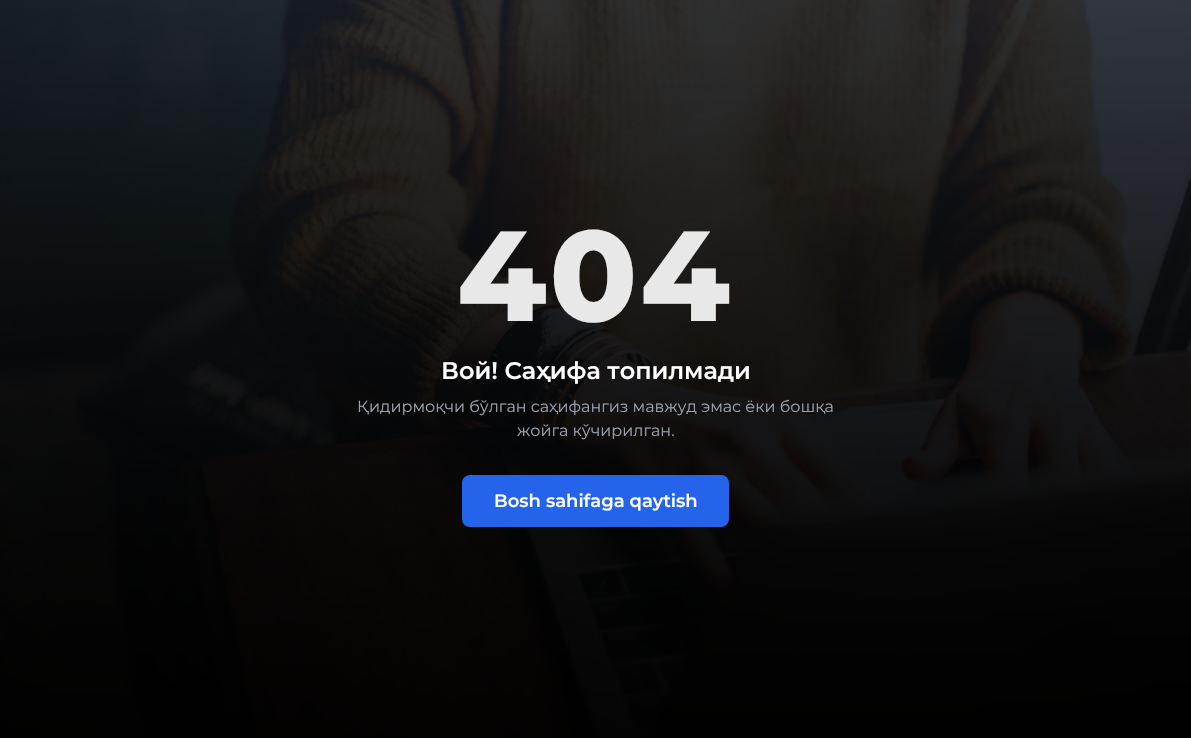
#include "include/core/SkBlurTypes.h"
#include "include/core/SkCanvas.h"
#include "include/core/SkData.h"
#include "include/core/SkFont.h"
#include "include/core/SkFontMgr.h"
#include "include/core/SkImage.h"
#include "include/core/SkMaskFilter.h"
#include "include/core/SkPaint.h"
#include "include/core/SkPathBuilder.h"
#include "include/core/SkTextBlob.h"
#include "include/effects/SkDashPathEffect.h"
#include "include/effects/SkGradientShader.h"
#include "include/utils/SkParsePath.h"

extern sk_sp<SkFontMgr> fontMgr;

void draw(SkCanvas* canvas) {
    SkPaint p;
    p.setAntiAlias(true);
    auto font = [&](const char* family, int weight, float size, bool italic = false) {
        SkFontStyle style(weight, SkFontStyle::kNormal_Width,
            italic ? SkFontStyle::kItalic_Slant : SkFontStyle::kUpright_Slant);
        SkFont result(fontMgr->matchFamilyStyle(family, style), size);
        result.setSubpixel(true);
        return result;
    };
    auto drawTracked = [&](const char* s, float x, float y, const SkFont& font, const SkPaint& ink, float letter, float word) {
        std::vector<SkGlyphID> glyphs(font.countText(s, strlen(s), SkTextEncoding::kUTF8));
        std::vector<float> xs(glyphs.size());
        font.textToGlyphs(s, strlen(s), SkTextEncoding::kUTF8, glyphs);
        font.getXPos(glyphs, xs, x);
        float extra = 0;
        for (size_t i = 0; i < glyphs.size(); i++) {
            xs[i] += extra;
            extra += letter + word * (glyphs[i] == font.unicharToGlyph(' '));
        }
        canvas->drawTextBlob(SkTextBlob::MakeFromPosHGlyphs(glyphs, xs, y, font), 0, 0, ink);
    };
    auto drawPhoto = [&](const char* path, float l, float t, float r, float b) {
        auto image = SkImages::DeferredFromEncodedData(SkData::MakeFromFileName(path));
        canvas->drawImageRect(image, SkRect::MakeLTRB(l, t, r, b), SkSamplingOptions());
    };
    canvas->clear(0xFFFFFFFF);
    {
        const SkColor colors[] = {0xFF1F2937, 0xFF000000};
        const float stops[] = {0, 1};
        const SkPoint ends[] = {{596, 0}, {596, 738}};
        p.setShader(SkGradientShader::MakeLinear(ends, colors, stops, 2, SkTileMode::kClamp));
        p.setAlpha(255);
    }
    canvas->drawRect(SkRect::MakeLTRB(0, 0, 1191, 738), p);
    drawPhoto("media/1.png", 0, 0, 1191, 738);
    {
        const SkColor colors[] = {0x4D000000, 0xE6000000};
        const float stops[] = {0, 1};
        const SkPoint ends[] = {{596, 0}, {596, 738}};
        p.setShader(SkGradientShader::MakeLinear(ends, colors, stops, 2, SkTileMode::kClamp));
        p.setAlpha(255);
    }
    canvas->drawRect(SkRect::MakeLTRB(0, 0, 1191, 738), p);
    auto font1 = font("Montserrat", 800, 128);
    p.setShader(nullptr);
    p.setColor(0xFFE8E8E8);
    drawTracked("404", 457, 321, font1, p, 3, 0);
    auto font2 = font("Montserrat", 600, 24);
    p.setColor(0xFFFFFFFF);
    canvas->drawString("Вой! Саҳифа топилмади", 441, 379, font2, p);
    auto font3 = font("Montserrat", 400, 16);
    p.setColor(0xFF9CA3AF);
    canvas->drawString("Қидирмоқчи бўлган саҳифангиз мавжуд эмас ёки бошқа", 357, 412, font3, p);
    canvas->drawString("жойга кўчирилган.", 517, 436, font3, p);
    p.setColor(0xFF2563EB);
    canvas->drawRoundRect(SkRect::MakeLTRB(462, 475, 729, 527), 8, 8, p);
    auto font4 = font("Montserrat", 600, 18);
    p.setColor(0xFFFFFFFF);
    canvas->drawString("Bosh sahifaga qaytish", 494, 507, font4, p);
}
